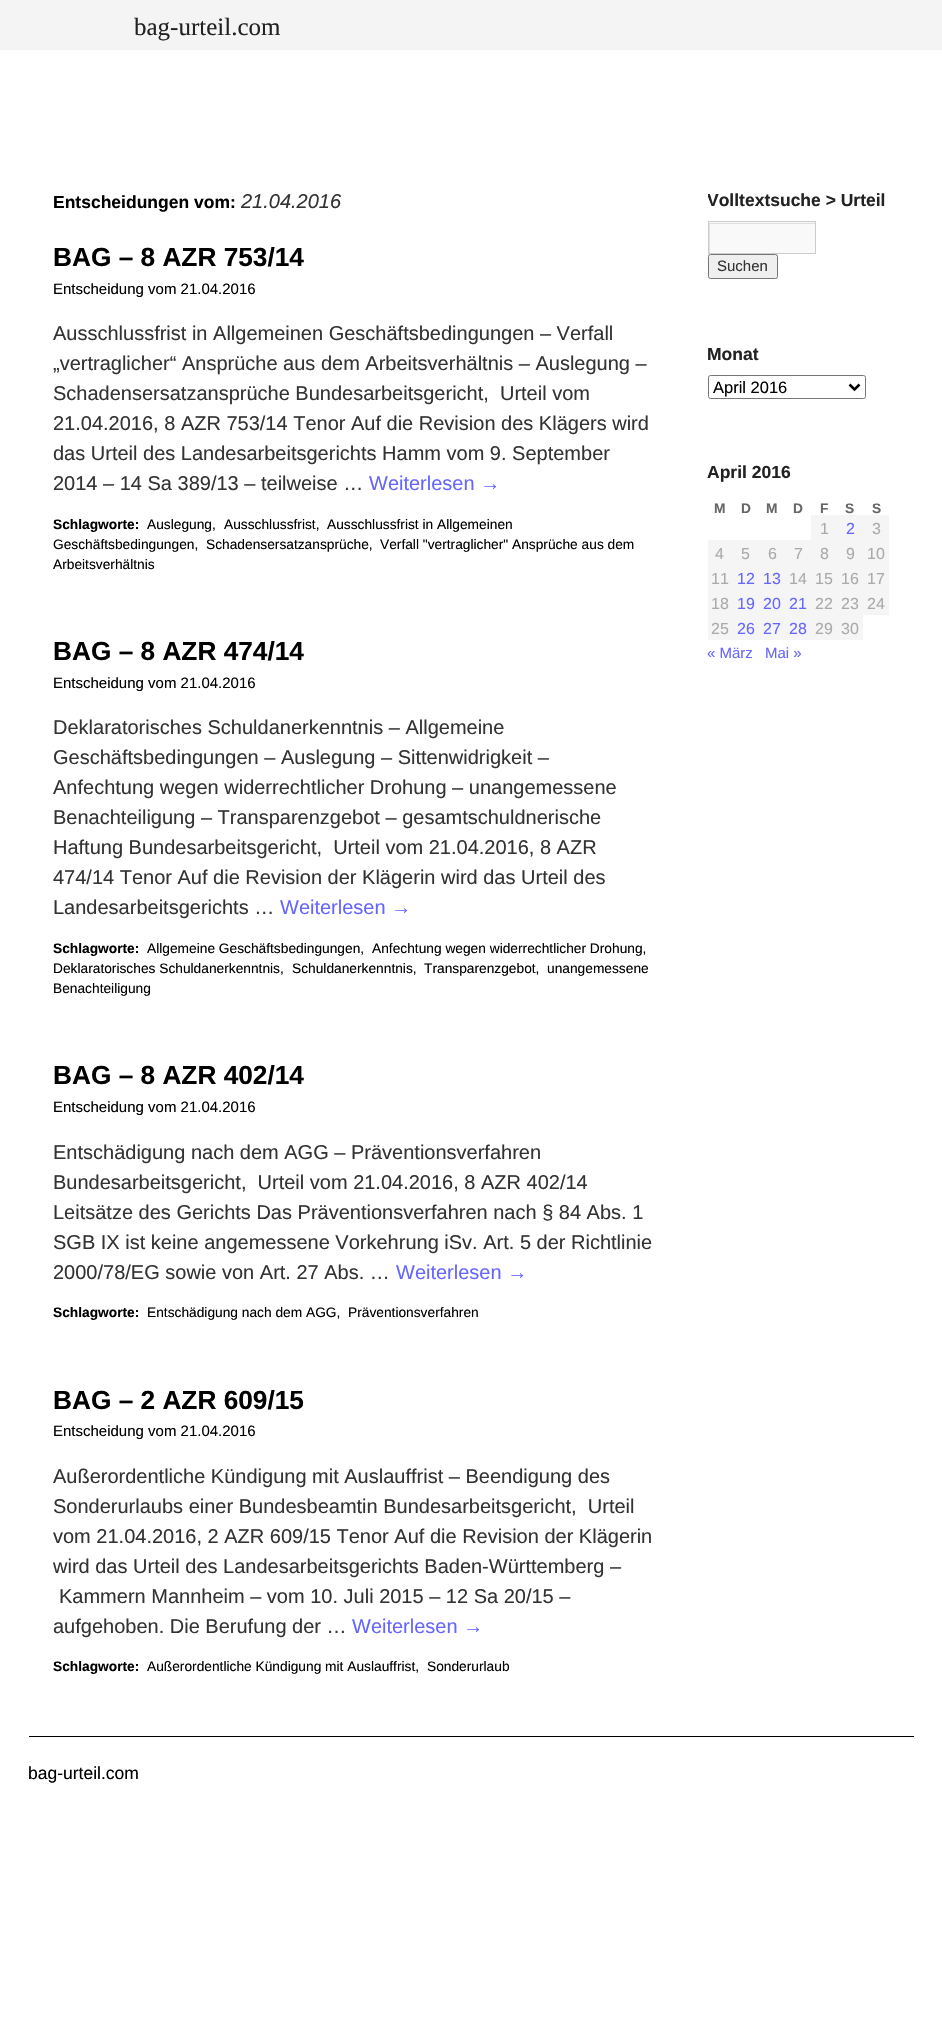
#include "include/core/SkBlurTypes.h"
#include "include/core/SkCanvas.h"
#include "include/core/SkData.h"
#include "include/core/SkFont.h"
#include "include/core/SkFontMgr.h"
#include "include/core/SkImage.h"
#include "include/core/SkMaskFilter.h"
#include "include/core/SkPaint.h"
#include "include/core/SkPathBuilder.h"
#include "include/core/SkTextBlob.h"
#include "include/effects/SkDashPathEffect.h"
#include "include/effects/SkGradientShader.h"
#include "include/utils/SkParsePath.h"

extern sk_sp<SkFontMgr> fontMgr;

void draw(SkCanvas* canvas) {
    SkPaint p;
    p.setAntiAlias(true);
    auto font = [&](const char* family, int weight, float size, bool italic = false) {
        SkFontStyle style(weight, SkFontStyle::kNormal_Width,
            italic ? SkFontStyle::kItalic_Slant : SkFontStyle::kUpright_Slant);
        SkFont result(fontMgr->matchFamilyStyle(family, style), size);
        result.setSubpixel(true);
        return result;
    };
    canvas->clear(0xFFFFFFFF);
    p.setColor(0xFFF4F4F4);
    canvas->drawRect(SkRect::MakeLTRB(0, 0, 942, 50), p);
    auto font1 = font("Liberation Serif", 400, 25);
    p.setColor(0xFF222222);
    canvas->drawString("bag-urteil.com", 134, 35, font1, p);
    auto font2 = font("Liberation Sans", 700, 17.5f);
    p.setColor(0xFF000000);
    canvas->drawString("Entscheidungen vom:", 53, 208, font2, p);
    auto font3 = font("Liberation Sans", 400, 20, true);
    p.setColor(0xFF333333);
    canvas->drawString("21.04.2016", 241, 208, font3, p);
    auto font4 = font("Liberation Sans", 700, 26.25f);
    p.setColor(0xFF000000);
    canvas->drawString("BAG – 8 AZR 753/14", 53, 266, font4, p);
    auto font5 = font("Liberation Sans", 400, 15);
    canvas->drawString("Entscheidung vom 21.04.2016", 53, 294, font5, p);
    auto font6 = font("Liberation Sans", 400, 20);
    p.setColor(0xFF333333);
    {
        const struct { const char* s; float x, y; } items[] = {
            {"Ausschlussfrist in Allgemeinen Geschäftsbedingungen – Verfall", 53, 340},
            {"„vertraglicher“ Ansprüche aus dem Arbeitsverhältnis – Auslegung –", 53, 370},
            {"Schadensersatzansprüche Bundesarbeitsgericht,  Urteil vom", 53, 400},
            {"21.04.2016, 8 AZR 753/14 Tenor Auf die Revision des Klägers wird", 53, 430},
            {"das Urteil des Landesarbeitsgerichts Hamm vom 9. September", 53, 460},
            {"2014 – 14 Sa 389/13 – teilweise …", 53, 490},
        };
        for (auto [s, x, y] : items) {
            canvas->drawString(s, x, y, font6, p);
        }
    }
    p.setColor(0xFF6666FF);
    canvas->drawString("Weiterlesen →", 369, 490, font6, p);
    auto font7 = font("Liberation Sans", 700, 13.75f);
    p.setColor(0xFF000000);
    canvas->drawString("Schlagworte:", 53, 529, font7, p);
    auto font8 = font("Liberation Sans", 400, 13.75f);
    {
        const struct { const char* s; float x, y; } items[] = {
            {"Auslegung,", 147, 529},
            {"Ausschlussfrist,", 224, 529},
            {"Ausschlussfrist in Allgemeinen", 327, 529},
            {"Geschäftsbedingungen,", 53, 549},
            {"Schadensersatzansprüche,", 206, 549},
            {"Verfall \"vertraglicher\" Ansprüche aus dem", 380, 549},
            {"Arbeitsverhältnis", 53, 569},
        };
        for (auto [s, x, y] : items) {
            canvas->drawString(s, x, y, font8, p);
        }
    }
    canvas->drawString("BAG – 8 AZR 474/14", 53, 660, font4, p);
    canvas->drawString("Entscheidung vom 21.04.2016", 53, 688, font5, p);
    p.setColor(0xFF333333);
    {
        const struct { const char* s; float x, y; } items[] = {
            {"Deklaratorisches Schuldanerkenntnis – Allgemeine", 53, 734},
            {"Geschäftsbedingungen – Auslegung – Sittenwidrigkeit –", 53, 764},
            {"Anfechtung wegen widerrechtlicher Drohung – unangemessene", 53, 794},
            {"Benachteiligung – Transparenzgebot – gesamtschuldnerische", 53, 824},
            {"Haftung Bundesarbeitsgericht,  Urteil vom 21.04.2016, 8 AZR", 53, 854},
            {"474/14 Tenor Auf die Revision der Klägerin wird das Urteil des", 53, 884},
            {"Landesarbeitsgerichts …", 53, 914},
        };
        for (auto [s, x, y] : items) {
            canvas->drawString(s, x, y, font6, p);
        }
    }
    p.setColor(0xFF6666FF);
    canvas->drawString("Weiterlesen →", 280, 914, font6, p);
    p.setColor(0xFF000000);
    canvas->drawString("Schlagworte:", 53, 953, font7, p);
    {
        const struct { const char* s; float x, y; } items[] = {
            {"Allgemeine Geschäftsbedingungen,", 147, 953},
            {"Anfechtung wegen widerrechtlicher Drohung,", 372, 953},
            {"Deklaratorisches Schuldanerkenntnis,", 53, 973},
            {"Schuldanerkenntnis,", 292, 973},
            {"Transparenzgebot,", 424, 973},
            {"unangemessene", 547, 973},
            {"Benachteiligung", 53, 993},
        };
        for (auto [s, x, y] : items) {
            canvas->drawString(s, x, y, font8, p);
        }
    }
    canvas->drawString("BAG – 8 AZR 402/14", 53, 1084, font4, p);
    canvas->drawString("Entscheidung vom 21.04.2016", 53, 1112, font5, p);
    p.setColor(0xFF333333);
    {
        const struct { const char* s; float x, y; } items[] = {
            {"Entschädigung nach dem AGG – Präventionsverfahren", 53, 1159},
            {"Bundesarbeitsgericht,  Urteil vom 21.04.2016, 8 AZR 402/14", 53, 1189},
            {"Leitsätze des Gerichts Das Präventionsverfahren nach § 84 Abs. 1", 53, 1219},
            {"SGB IX ist keine angemessene Vorkehrung iSv. Art. 5 der Richtlinie", 53, 1249},
            {"2000/78/EG sowie von Art. 27 Abs. …", 53, 1279},
        };
        for (auto [s, x, y] : items) {
            canvas->drawString(s, x, y, font6, p);
        }
    }
    p.setColor(0xFF6666FF);
    canvas->drawString("Weiterlesen →", 396, 1279, font6, p);
    p.setColor(0xFF000000);
    canvas->drawString("Schlagworte:", 53, 1317, font7, p);
    canvas->drawString("Entschädigung nach dem AGG,", 147, 1317, font8, p);
    canvas->drawString("Präventionsverfahren", 348, 1317, font8, p);
    canvas->drawString("BAG – 2 AZR 609/15", 53, 1409, font4, p);
    canvas->drawString("Entscheidung vom 21.04.2016", 53, 1436, font5, p);
    p.setColor(0xFF333333);
    {
        const struct { const char* s; float x, y; } items[] = {
            {"Außerordentliche Kündigung mit Auslauffrist – Beendigung des", 53, 1483},
            {"Sonderurlaubs einer Bundesbeamtin Bundesarbeitsgericht,  Urteil", 53, 1513},
            {"vom 21.04.2016, 2 AZR 609/15 Tenor Auf die Revision der Klägerin", 53, 1543},
            {"wird das Urteil des Landesarbeitsgerichts Baden-Württemberg –", 53, 1573},
            {"Kammern Mannheim – vom 10. Juli 2015 – 12 Sa 20/15 –", 59, 1603},
            {"aufgehoben. Die Berufung der …", 53, 1633},
        };
        for (auto [s, x, y] : items) {
            canvas->drawString(s, x, y, font6, p);
        }
    }
    p.setColor(0xFF6666FF);
    canvas->drawString("Weiterlesen →", 352, 1633, font6, p);
    p.setColor(0xFF000000);
    canvas->drawString("Schlagworte:", 53, 1671, font7, p);
    canvas->drawString("Außerordentliche Kündigung mit Auslauffrist,", 147, 1671, font8, p);
    canvas->drawString("Sonderurlaub", 427, 1671, font8, p);
    canvas->save();
    canvas->clipRect(SkRect::MakeLTRB(708, 188, 914, 728));
    p.setColor(0xFF222222);
    canvas->drawString("Volltextsuche > Urteil", 707, 206, font2, p);
    canvas->restore();
    p.setColor(0xFFF9F9F9);
    canvas->drawRect(SkRect::MakeLTRB(709, 222, 815, 253), p);
    canvas->save();
    canvas->clipRect(SkRect::MakeLTRB(709, 223, 815, 253));
    p.setColor(0xFFE0E0E0);
    canvas->drawPath(SkPathBuilder(SkPathFillType::kEvenOdd).moveTo(585, 99).lineTo(939, 99).lineTo(939, 376).lineTo(585, 376).close().moveTo(710, 224).lineTo(816, 224).lineTo(816, 254).lineTo(710, 254).close().detach(), p);
    canvas->restore();
    p.setStyle(SkPaint::kStroke_Style);
    p.setStrokeWidth(1);
    p.setColor(0xFFCCCCCC);
    canvas->drawRect(SkRect::MakeLTRB(708.5f, 221.5f, 815.5f, 253.5f), p);
    p.setStyle(SkPaint::kFill_Style);
    p.setColor(0xFFEFEFEF);
    canvas->drawRoundRect(SkRect::MakeLTRB(708.5f, 254.5f, 777.5f, 278.5f), 2, 2, p);
    p.setStyle(SkPaint::kStroke_Style);
    p.setColor(0xFF767676);
    canvas->drawRoundRect(SkRect::MakeLTRB(708.5f, 254.5f, 777.5f, 278.5f), 2, 2, p);
    p.setStyle(SkPaint::kFill_Style);
    p.setColor(0xFF333333);
    canvas->drawString("Suchen", 717, 271, font5, p);
    p.setColor(0xFF222222);
    canvas->drawString("Monat", 707, 360, font2, p);
    p.setStyle(SkPaint::kStroke_Style);
    p.setColor(0xFF767676);
    canvas->drawRoundRect(SkRect::MakeLTRB(708.5f, 375.5f, 865.5f, 398.5f), 2, 2, p);
    p.setStrokeWidth(2.5f);
    p.setColor(0xFF000000);
    canvas->drawPath(SkPathBuilder().moveTo(849.5f, 384.5f).lineTo(854.5f, 389.5f).lineTo(859.5f, 384.5f).detach(), p);
    auto font9 = font("Liberation Sans", 400, 16.5f);
    p.setStyle(SkPaint::kFill_Style);
    canvas->drawString("April 2016", 713, 393, font9, p);
    p.setColor(0xFF222222);
    canvas->drawString("April 2016", 707, 478, font2, p);
    p.setColor(0xFF666666);
    {
        const struct { const char* s; float x, y; } items[] = {
            {"M", 714, 513},
            {"D", 741, 513},
            {"M", 766, 513},
            {"D", 793, 513},
            {"F", 820, 513},
            {"S", 845, 513},
            {"S", 872, 513},
        };
        for (auto [s, x, y] : items) {
            canvas->drawString(s, x, y, font7, p);
        }
    }
    p.setColor(0xFFF5F5F5);
    canvas->drawRect(SkRect::MakeLTRB(811, 515, 889, 540), p);
    auto font10 = font("Liberation Sans", 400, 16);
    p.setColor(0xFFAAAAAA);
    canvas->drawString("1", 820, 534, font10, p);
    p.setColor(0xFF6666FF);
    canvas->drawString("2", 846, 534, font10, p);
    p.setColor(0xFFAAAAAA);
    canvas->drawString("3", 872, 534, font10, p);
    p.setColor(0xFFF5F5F5);
    canvas->drawRect(SkRect::MakeLTRB(708, 540, 889, 565), p);
    p.setColor(0xFFAAAAAA);
    {
        const struct { const char* s; float x, y; } items[] = {
            {"4", 715, 559},
            {"5", 741, 559},
            {"6", 768, 559},
            {"7", 794, 559},
            {"8", 820, 559},
            {"9", 846, 559},
            {"10", 867, 559},
        };
        for (auto [s, x, y] : items) {
            canvas->drawString(s, x, y, font10, p);
        }
    }
    p.setColor(0xFFF5F5F5);
    canvas->drawRect(SkRect::MakeLTRB(708, 565, 889, 590), p);
    p.setColor(0xFFAAAAAA);
    canvas->drawString("11", 711, 584, font10, p);
    p.setColor(0xFF6666FF);
    canvas->drawString("12", 737, 584, font10, p);
    canvas->drawString("13", 763, 584, font10, p);
    p.setColor(0xFFAAAAAA);
    {
        const struct { const char* s; float x, y; } items[] = {
            {"14", 789, 584},
            {"15", 815, 584},
            {"16", 841, 584},
            {"17", 867, 584},
        };
        for (auto [s, x, y] : items) {
            canvas->drawString(s, x, y, font10, p);
        }
    }
    p.setColor(0xFFF5F5F5);
    canvas->drawRect(SkRect::MakeLTRB(708, 590, 889, 615), p);
    p.setColor(0xFFAAAAAA);
    canvas->drawString("18", 711, 609, font10, p);
    p.setColor(0xFF6666FF);
    {
        const struct { const char* s; float x, y; } items[] = {
            {"19", 737, 609},
            {"20", 763, 609},
            {"21", 789, 609},
        };
        for (auto [s, x, y] : items) {
            canvas->drawString(s, x, y, font10, p);
        }
    }
    p.setColor(0xFFAAAAAA);
    {
        const struct { const char* s; float x, y; } items[] = {
            {"22", 815, 609},
            {"23", 841, 609},
            {"24", 867, 609},
        };
        for (auto [s, x, y] : items) {
            canvas->drawString(s, x, y, font10, p);
        }
    }
    p.setColor(0xFFF5F5F5);
    canvas->drawRect(SkRect::MakeLTRB(708, 615, 863, 640), p);
    p.setColor(0xFFAAAAAA);
    canvas->drawString("25", 711, 634, font10, p);
    p.setColor(0xFF6666FF);
    {
        const struct { const char* s; float x, y; } items[] = {
            {"26", 737, 634},
            {"27", 763, 634},
            {"28", 789, 634},
        };
        for (auto [s, x, y] : items) {
            canvas->drawString(s, x, y, font10, p);
        }
    }
    p.setColor(0xFFAAAAAA);
    canvas->drawString("29", 815, 634, font10, p);
    canvas->drawString("30", 841, 634, font10, p);
    p.setColor(0xFF6666FF);
    canvas->drawString("« März", 707, 658, font5, p);
    canvas->drawString("Mai »", 765, 658, font5, p);
    p.setColor(0xFF000000);
    canvas->drawRect(SkRect::MakeLTRB(29, 1736, 914, 1737), p);
    auto font11 = font("Liberation Sans", 400, 17.5f);
    canvas->drawString("bag-urteil.com", 28, 1779, font11, p);
}
